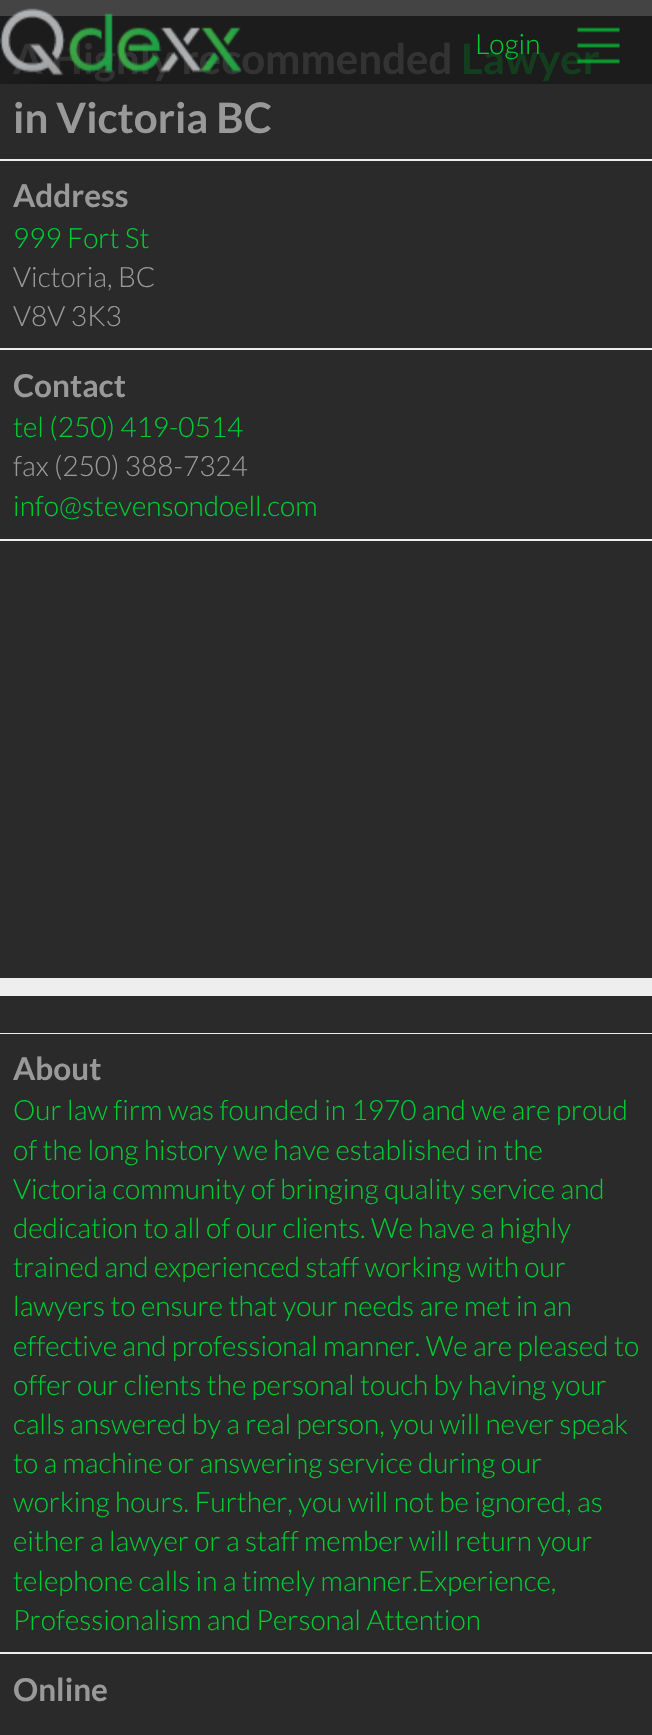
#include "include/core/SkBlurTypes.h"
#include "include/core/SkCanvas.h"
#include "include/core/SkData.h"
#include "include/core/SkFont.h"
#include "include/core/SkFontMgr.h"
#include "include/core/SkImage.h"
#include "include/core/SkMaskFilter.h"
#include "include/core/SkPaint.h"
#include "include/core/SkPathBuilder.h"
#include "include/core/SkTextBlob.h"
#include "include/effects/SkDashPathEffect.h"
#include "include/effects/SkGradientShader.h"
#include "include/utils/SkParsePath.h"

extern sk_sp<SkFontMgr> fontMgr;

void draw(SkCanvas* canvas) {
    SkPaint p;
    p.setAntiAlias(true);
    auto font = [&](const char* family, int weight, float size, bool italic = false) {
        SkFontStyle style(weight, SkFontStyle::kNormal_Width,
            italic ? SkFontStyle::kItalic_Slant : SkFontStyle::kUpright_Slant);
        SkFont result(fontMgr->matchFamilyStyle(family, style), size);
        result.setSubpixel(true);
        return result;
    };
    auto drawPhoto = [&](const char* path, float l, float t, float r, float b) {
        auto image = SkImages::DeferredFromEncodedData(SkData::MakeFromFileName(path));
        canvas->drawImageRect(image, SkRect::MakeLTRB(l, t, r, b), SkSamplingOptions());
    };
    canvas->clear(0xFFEEEEEE);
    p.setColor(0xFF444444);
    canvas->drawRect(SkRect::MakeLTRB(0, 0, 652, 16), p);
    p.setColor(0xFF1C1C1C);
    canvas->drawRect(SkRect::MakeLTRB(0, 16, 652, 84), p);
    auto font1 = font("Lato", 700, 42);
    p.setColor(0xFF333333);
    canvas->drawString("A Highly recommended", 13, 74, font1, p);
    drawPhoto("media/1.png", 0, 8, 242, 76);
    p.setColor(0xFF2A2A2A);
    canvas->drawRect(SkRect::MakeLTRB(0, 84, 652, 159), p);
    canvas->drawRect(SkRect::MakeLTRB(0, 161, 652, 348), p);
    canvas->save();
    canvas->clipRect(SkRect::MakeLTRB(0, 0, 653, 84));
    p.setColor(0xFF000000);
    p.setMaskFilter(SkMaskFilter::MakeBlur(kNormal_SkBlurStyle, 26));
    canvas->drawRect(SkRect::MakeLTRB(37, 100, 98, 161), p);
    p.setMaskFilter(nullptr);
    canvas->restore();
    p.setColor(0xFF143D1E);
    canvas->drawString("Lawyer", 461, 74, font1, p);
    auto font2 = font("Lato", 300, 28);
    p.setColor(0xFF00CC33);
    canvas->drawString("Login", 475, 54, font2, p);
    drawPhoto("media/2.png", 577, 27, 620, 64);
    p.setColor(0xFF999999);
    canvas->drawString("in Victoria BC", 13, 133, font1, p);
    auto font3 = font("Lato", 700, 31.5f);
    canvas->drawString("Address", 13, 207, font3, p);
    p.setColor(0xFF00CC33);
    canvas->drawString("999 Fort St", 13, 248, font2, p);
    p.setColor(0xFF999999);
    canvas->drawString("Victoria, BC", 13, 287, font2, p);
    canvas->drawString("V8V 3K3", 13, 326, font2, p);
    p.setColor(0xFF2A2A2A);
    canvas->drawRect(SkRect::MakeLTRB(0, 350, 652, 539), p);
    p.setColor(0xFF999999);
    canvas->drawString("Contact", 13, 397, font3, p);
    p.setColor(0xFF00CC33);
    canvas->drawString("tel (250) 419-0514", 13, 437, font2, p);
    p.setColor(0xFF999999);
    canvas->drawString("fax (250) 388-7324", 13, 476, font2, p);
    p.setColor(0xFF00CC33);
    canvas->drawString("info@stevensondoell.com", 13, 516, font2, p);
    {
        const struct { float l, t, r, b; SkColor color; } items[] = {
            {0, 541, 652, 978, 0xFF2A2A2A},
            {0, 996, 652, 1033, 0xFF2A2A2A},
            {0, 1034, 652, 1652, 0xFF2A2A2A},
        };
        for (auto [l, t, r, b, color] : items) {
            p.setColor(color);
            canvas->drawRect(SkRect::MakeLTRB(l, t, r, b), p);
        }
    }
    p.setColor(0xFF999999);
    canvas->drawString("About", 13, 1080, font3, p);
    p.setColor(0xFF00CC33);
    {
        const struct { const char* s; float x, y; } items[] = {
            {"Our law firm was founded in 1970 and we are proud", 13, 1120},
            {"of the long history we have established in the", 13, 1160},
            {"Victoria community of bringing quality service and", 13, 1199},
            {"dedication to all of our clients. We have a highly", 13, 1238},
            {"trained and experienced staff working with our", 13, 1277},
            {"lawyers to ensure that your needs are met in an", 13, 1316},
            {"effective and professional manner. We are pleased to", 13, 1356},
            {"offer our clients the personal touch by having your", 13, 1395},
            {"calls answered by a real person, you will never speak", 13, 1434},
            {"to a machine or answering service during our", 13, 1473},
            {"working hours. Further, you will not be ignored, as", 13, 1512},
            {"either a lawyer or a staff member will return your", 13, 1551},
            {"telephone calls in a timely manner.Experience,", 13, 1591},
            {"Professionalism and Personal Attention", 13, 1630},
        };
        for (auto [s, x, y] : items) {
            canvas->drawString(s, x, y, font2, p);
        }
    }
    p.setColor(0xFF2A2A2A);
    canvas->drawRect(SkRect::MakeLTRB(0, 1654, 652, 1735), p);
    p.setColor(0xFF999999);
    canvas->drawString("Online", 13, 1701, font3, p);
}
